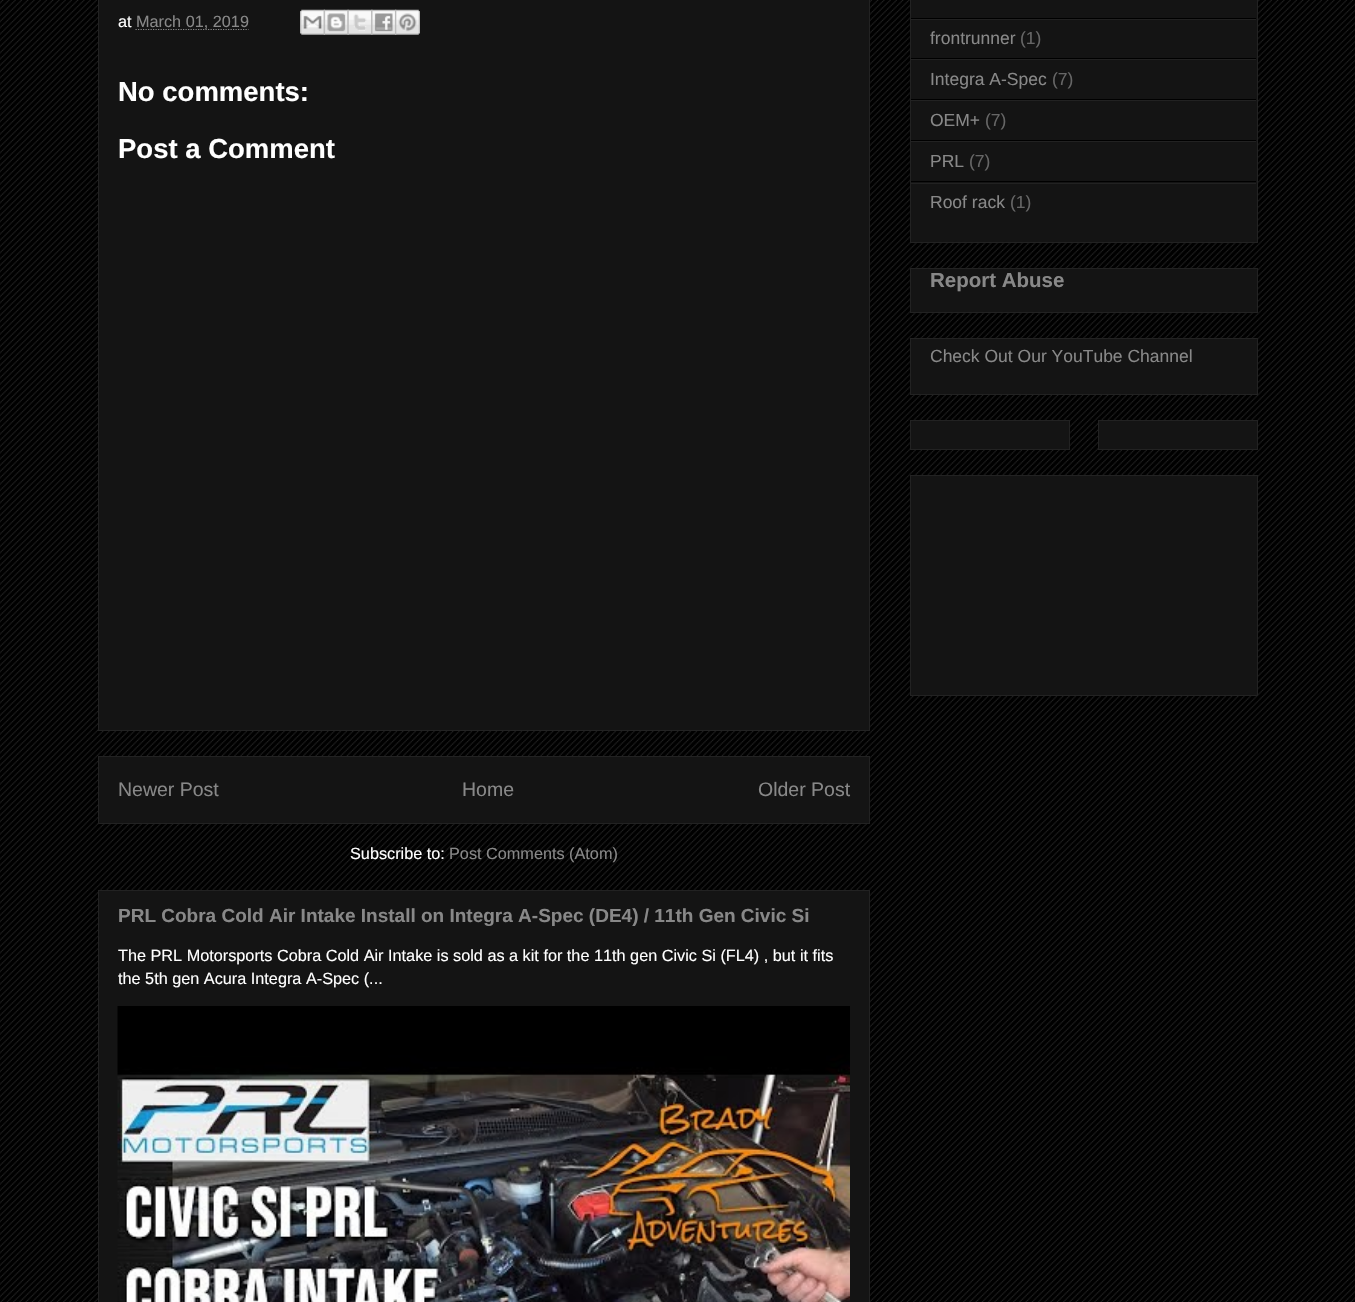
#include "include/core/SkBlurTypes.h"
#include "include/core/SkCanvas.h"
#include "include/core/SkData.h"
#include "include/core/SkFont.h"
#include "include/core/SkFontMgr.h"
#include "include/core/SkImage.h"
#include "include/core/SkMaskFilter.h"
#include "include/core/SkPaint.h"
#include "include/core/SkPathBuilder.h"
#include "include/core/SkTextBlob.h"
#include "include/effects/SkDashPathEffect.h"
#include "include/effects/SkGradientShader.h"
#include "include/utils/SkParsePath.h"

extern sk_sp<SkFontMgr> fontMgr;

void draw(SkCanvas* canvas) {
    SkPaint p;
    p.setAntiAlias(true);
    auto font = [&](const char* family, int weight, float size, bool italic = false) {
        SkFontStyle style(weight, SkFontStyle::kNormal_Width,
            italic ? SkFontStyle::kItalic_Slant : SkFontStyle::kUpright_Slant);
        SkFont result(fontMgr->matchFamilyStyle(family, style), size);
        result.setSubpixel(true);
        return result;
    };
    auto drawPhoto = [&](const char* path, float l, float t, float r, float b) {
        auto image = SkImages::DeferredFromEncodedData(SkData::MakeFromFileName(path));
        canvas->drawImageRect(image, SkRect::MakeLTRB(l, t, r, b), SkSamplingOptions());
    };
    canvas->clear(0xFF000000);
    drawPhoto("media/1.png", 0, 0, 1355, 1302);
    p.setColor(0xFF141414);
    canvas->drawRect(SkRect::MakeLTRB(98.5f, -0.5f, 869.5f, 730.5f), p);
    p.setStyle(SkPaint::kStroke_Style);
    p.setStrokeWidth(1);
    p.setColor(0xFF222222);
    canvas->drawRect(SkRect::MakeLTRB(98.5f, -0.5f, 869.5f, 730.5f), p);
    auto font1 = font("Liberation Sans", 400, 16.25f);
    p.setStyle(SkPaint::kFill_Style);
    p.setColor(0xFFFFFFFF);
    canvas->drawString("at", 118, 27, font1, p);
    p.setStyle(SkPaint::kStroke_Style);
    p.setStrokeWidth(1.2f);
    p.setColor(0xFF888888);
    p.setPathEffect(SkDashPathEffect::Make({{1.25f, 1.25f}}, 0));
    canvas->drawPath(SkPathBuilder().moveTo(135.5f, 29.5f).lineTo(248.5f, 29.5f).detach(), p);
    p.setPathEffect(nullptr);
    p.setStyle(SkPaint::kFill_Style);
    canvas->drawString("March 01, 2019", 136, 27, font1, p);
    drawPhoto("media/2.png", 300, 9, 325, 35);
    drawPhoto("media/3.png", 323, 9, 349, 35);
    drawPhoto("media/4.png", 347, 9, 373, 35);
    drawPhoto("media/5.png", 371, 9, 397, 35);
    drawPhoto("media/6.png", 395, 9, 420, 35);
    auto font2 = font("Liberation Sans", 700, 27.5f);
    p.setColor(0xFFFFFFFF);
    canvas->drawString("No comments:", 118, 101, font2, p);
    canvas->drawString("Post a Comment", 118, 158, font2, p);
    p.setColor(0xFF141414);
    canvas->drawRect(SkRect::MakeLTRB(98.5f, 756.5f, 869.5f, 823.5f), p);
    p.setStyle(SkPaint::kStroke_Style);
    p.setStrokeWidth(1);
    p.setColor(0xFF222222);
    canvas->drawRect(SkRect::MakeLTRB(98.5f, 756.5f, 869.5f, 823.5f), p);
    auto font3 = font("Liberation Sans", 400, 19.5f);
    p.setStyle(SkPaint::kFill_Style);
    p.setColor(0xFF888888);
    {
        const struct { const char* s; float x, y; } items[] = {
            {"Newer Post", 118, 796},
            {"Home", 462, 796},
            {"Older Post", 758, 796},
        };
        for (auto [s, x, y] : items) {
            canvas->drawString(s, x, y, font3, p);
        }
    }
    p.setColor(0xFFFFFFFF);
    canvas->drawString("Subscribe to:", 350, 859, font1, p);
    p.setColor(0xFF888888);
    canvas->drawString("Post Comments (Atom)", 449, 859, font1, p);
    p.setColor(0xFF141414);
    canvas->drawRect(SkRect::MakeLTRB(98.5f, 890.5f, 869.5f, 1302.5f), p);
    p.setStyle(SkPaint::kStroke_Style);
    p.setColor(0xFF222222);
    canvas->drawRect(SkRect::MakeLTRB(98.5f, 890.5f, 869.5f, 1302.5f), p);
    auto font4 = font("Liberation Sans", 700, 19);
    p.setStyle(SkPaint::kFill_Style);
    p.setColor(0xFF888888);
    canvas->drawString("PRL Cobra Cold Air Intake Install on Integra A-Spec (DE4) / 11th Gen Civic Si", 118, 922, font4, p);
    p.setColor(0xFFFFFFFF);
    canvas->drawString("The PRL Motorsports Cobra Cold Air Intake is sold as a kit for the 11th gen Civic Si (FL4) , but it fits", 118, 961, font1, p);
    canvas->drawString("the 5th gen Acura Integra A-Spec (...", 118, 984, font1, p);
    drawPhoto("media/7.png", 117, 1006, 850, 1302);
    p.setColor(0xFF141414);
    canvas->drawRect(SkRect::MakeLTRB(910.5f, -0.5f, 1257.5f, 242.5f), p);
    p.setStyle(SkPaint::kStroke_Style);
    p.setColor(0xFF222222);
    canvas->drawRect(SkRect::MakeLTRB(910.5f, -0.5f, 1257.5f, 242.5f), p);
    p.setStyle(SkPaint::kFill_Style);
    {
        const struct { float l, t, r, b; SkColor color; } items[] = {
            {911, 18, 1256, 19, 0xFF000000},
            {911, 19, 1256, 20, 0xFF222222},
            {911, 58, 1256, 59, 0xFF000000},
        };
        for (auto [l, t, r, b, color] : items) {
            p.setColor(color);
            canvas->drawRect(SkRect::MakeLTRB(l, t, r, b), p);
        }
    }
    auto font5 = font("Liberation Sans", 400, 17.5f);
    p.setColor(0xFF888888);
    canvas->drawString("frontrunner", 930, 44, font5, p);
    p.setColor(0xFF666666);
    canvas->drawString("(1)", 1020, 44, font5, p);
    p.setColor(0xFF222222);
    canvas->drawRect(SkRect::MakeLTRB(911, 59, 1256, 60), p);
    p.setColor(0xFF000000);
    canvas->drawRect(SkRect::MakeLTRB(911, 99, 1256, 100), p);
    p.setColor(0xFF888888);
    canvas->drawString("Integra A-Spec", 930, 85, font5, p);
    p.setColor(0xFF666666);
    canvas->drawString("(7)", 1052, 85, font5, p);
    p.setColor(0xFF222222);
    canvas->drawRect(SkRect::MakeLTRB(911, 100, 1256, 101), p);
    p.setColor(0xFF000000);
    canvas->drawRect(SkRect::MakeLTRB(911, 140, 1256, 141), p);
    p.setColor(0xFF888888);
    canvas->drawString("OEM+", 930, 126, font5, p);
    p.setColor(0xFF666666);
    canvas->drawString("(7)", 985, 126, font5, p);
    p.setColor(0xFF222222);
    canvas->drawRect(SkRect::MakeLTRB(911, 141, 1256, 142), p);
    p.setColor(0xFF000000);
    canvas->drawRect(SkRect::MakeLTRB(911, 181, 1256, 182), p);
    p.setColor(0xFF888888);
    canvas->drawString("PRL", 930, 167, font5, p);
    p.setColor(0xFF666666);
    canvas->drawString("(7)", 969, 167, font5, p);
    p.setColor(0xFF222222);
    canvas->drawRect(SkRect::MakeLTRB(911, 183, 1256, 184), p);
    p.setColor(0xFF888888);
    canvas->drawString("Roof rack", 930, 208, font5, p);
    p.setColor(0xFF666666);
    canvas->drawString("(1)", 1010, 208, font5, p);
    p.setColor(0xFF141414);
    canvas->drawRect(SkRect::MakeLTRB(910.5f, 268.5f, 1257.5f, 312.5f), p);
    p.setStyle(SkPaint::kStroke_Style);
    p.setColor(0xFF222222);
    canvas->drawRect(SkRect::MakeLTRB(910.5f, 268.5f, 1257.5f, 312.5f), p);
    auto font6 = font("Liberation Sans", 700, 20.5f);
    p.setStyle(SkPaint::kFill_Style);
    p.setColor(0xFF888888);
    canvas->drawString("Report Abuse", 930, 287, font6, p);
    p.setColor(0xFF141414);
    canvas->drawRect(SkRect::MakeLTRB(910.5f, 338.5f, 1257.5f, 394.5f), p);
    p.setStyle(SkPaint::kStroke_Style);
    p.setColor(0xFF222222);
    canvas->drawRect(SkRect::MakeLTRB(910.5f, 338.5f, 1257.5f, 394.5f), p);
    p.setStyle(SkPaint::kFill_Style);
    p.setColor(0xFF888888);
    canvas->drawString("Check Out Our YouTube Channel", 930, 362, font5, p);
    p.setColor(0xFF141414);
    canvas->drawRect(SkRect::MakeLTRB(910.5f, 420.5f, 1069.5f, 449.5f), p);
    p.setStyle(SkPaint::kStroke_Style);
    p.setColor(0xFF222222);
    canvas->drawRect(SkRect::MakeLTRB(910.5f, 420.5f, 1069.5f, 449.5f), p);
    p.setStyle(SkPaint::kFill_Style);
    p.setColor(0xFF141414);
    canvas->drawRect(SkRect::MakeLTRB(1098.5f, 420.5f, 1257.5f, 449.5f), p);
    p.setStyle(SkPaint::kStroke_Style);
    p.setColor(0xFF222222);
    canvas->drawRect(SkRect::MakeLTRB(1098.5f, 420.5f, 1257.5f, 449.5f), p);
    p.setStyle(SkPaint::kFill_Style);
    p.setColor(0xFF141414);
    canvas->drawRect(SkRect::MakeLTRB(910.5f, 475.5f, 1257.5f, 695.5f), p);
    p.setStyle(SkPaint::kStroke_Style);
    p.setColor(0xFF222222);
    canvas->drawRect(SkRect::MakeLTRB(910.5f, 475.5f, 1257.5f, 695.5f), p);
}
